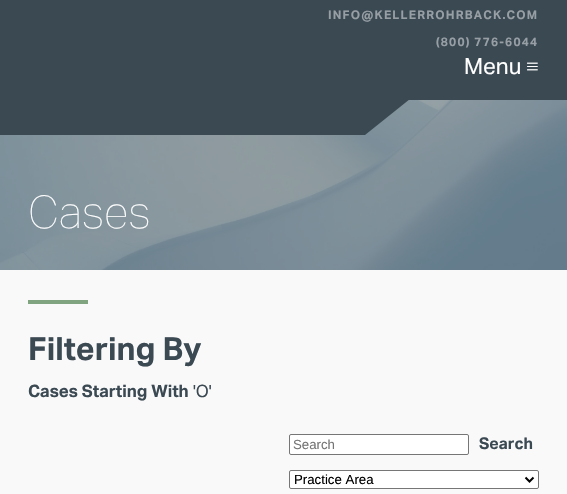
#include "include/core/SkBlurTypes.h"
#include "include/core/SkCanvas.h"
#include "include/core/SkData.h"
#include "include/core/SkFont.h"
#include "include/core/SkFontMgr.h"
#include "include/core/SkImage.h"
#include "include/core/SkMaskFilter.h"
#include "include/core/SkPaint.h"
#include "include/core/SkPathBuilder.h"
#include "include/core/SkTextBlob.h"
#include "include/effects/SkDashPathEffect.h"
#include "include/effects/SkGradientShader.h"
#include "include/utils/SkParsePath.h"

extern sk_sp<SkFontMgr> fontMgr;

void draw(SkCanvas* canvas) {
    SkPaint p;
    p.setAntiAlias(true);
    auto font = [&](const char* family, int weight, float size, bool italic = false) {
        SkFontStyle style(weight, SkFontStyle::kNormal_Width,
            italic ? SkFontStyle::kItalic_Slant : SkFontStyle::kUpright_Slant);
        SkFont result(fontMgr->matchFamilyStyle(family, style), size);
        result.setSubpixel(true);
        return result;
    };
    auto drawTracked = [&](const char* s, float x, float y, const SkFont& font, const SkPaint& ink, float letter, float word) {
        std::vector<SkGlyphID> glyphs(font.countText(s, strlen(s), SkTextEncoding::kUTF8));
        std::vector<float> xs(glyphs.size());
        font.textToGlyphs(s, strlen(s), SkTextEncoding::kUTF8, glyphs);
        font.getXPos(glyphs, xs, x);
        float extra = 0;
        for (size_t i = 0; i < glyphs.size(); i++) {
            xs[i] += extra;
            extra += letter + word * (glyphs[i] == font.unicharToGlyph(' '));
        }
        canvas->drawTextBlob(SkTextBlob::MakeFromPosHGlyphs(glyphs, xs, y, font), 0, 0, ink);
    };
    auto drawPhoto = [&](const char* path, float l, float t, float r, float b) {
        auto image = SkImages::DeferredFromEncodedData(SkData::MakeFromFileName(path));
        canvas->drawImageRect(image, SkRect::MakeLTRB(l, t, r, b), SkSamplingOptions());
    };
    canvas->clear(0xFF7D8D98);
    p.setColor(0xFF3B4953);
    canvas->drawRect(SkRect::MakeLTRB(0, 0, 567, 100), p);
    auto font1 = font("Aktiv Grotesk", 700, 12);
    p.setColor(0xFF979FA4);
    drawTracked("INFO@KELLERROHRBACK.COM", 328, 19, font1, p, 1.2f, 0);
    drawTracked("(800) 776-6044", 436, 46, font1, p, 1.2f, 0);
    drawPhoto("media/1.png", 0, 100, 567, 270);
    p.setColor(0xFF3B4953);
    canvas->drawPath(SkPathBuilder().moveTo(0, 99).lineTo(0, 135).lineTo(365, 135).lineTo(410, 99).lineTo(0, 99).detach(), p);
    auto font2 = font("Aktiv Grotesk", 400, 22.5f);
    p.setColor(0xFFFFFFFF);
    canvas->drawString("Menu", 464, 74, font2, p);
    auto font3 = font("Liberation Serif", 400, 22.5f);
    canvas->drawString("≡", 526, 74, font3, p);
    auto font4 = font("Aktiv Grotesk", 300, 45);
    canvas->drawString("Cases", 28, 228, font4, p);
    p.setColor(0xFFF9F9F9);
    canvas->drawRect(SkRect::MakeLTRB(0, 270, 567, 494), p);
    p.setColor(0xFF7FA47F);
    canvas->drawRect(SkRect::MakeLTRB(28, 300, 88, 304), p);
    auto font5 = font("Aktiv Grotesk", 700, 32);
    p.setColor(0xFF3B4953);
    canvas->drawString("Filtering By", 28, 360, font5, p);
    auto font6 = font("Aktiv Grotesk", 700, 17);
    canvas->drawString("Cases Starting With", 28, 397, font6, p);
    auto font7 = font("Aktiv Grotesk", 400, 17);
    canvas->drawString("'O'", 193, 397, font7, p);
    p.setColor(0xFFFFFFFF);
    canvas->drawRoundRect(SkRect::MakeLTRB(289.5f, 434.5f, 468.5f, 454.5f), 1.5f, 1.5f, p);
    p.setStyle(SkPaint::kStroke_Style);
    p.setStrokeWidth(1);
    p.setColor(0xFF767676);
    canvas->drawRoundRect(SkRect::MakeLTRB(289.5f, 434.5f, 468.5f, 454.5f), 1.5f, 1.5f, p);
    auto font8 = font("Liberation Sans", 400, 13.25f);
    p.setStyle(SkPaint::kFill_Style);
    p.setColor(0xFF757575);
    canvas->drawString("Search", 293, 449, font8, p);
    auto font9 = font("Aktiv Grotesk", 700, 16);
    p.setColor(0xFF3B4953);
    canvas->drawString("Search", 479, 449, font9, p);
    p.setColor(0xFFFFFFFF);
    canvas->drawRoundRect(SkRect::MakeLTRB(289.5f, 470.5f, 538.5f, 488.5f), 1.5f, 1.5f, p);
    p.setStyle(SkPaint::kStroke_Style);
    p.setColor(0xFF767676);
    canvas->drawRoundRect(SkRect::MakeLTRB(289.5f, 470.5f, 538.5f, 488.5f), 1.5f, 1.5f, p);
    p.setStrokeWidth(2);
    p.setColor(0xFF000000);
    canvas->drawPath(SkPathBuilder().moveTo(525.5f, 477.5f).lineTo(529.5f, 481.5f).lineTo(533.5f, 477.5f).detach(), p);
    p.setStyle(SkPaint::kFill_Style);
    canvas->drawString("Practice Area", 294, 484, font8, p);
}
